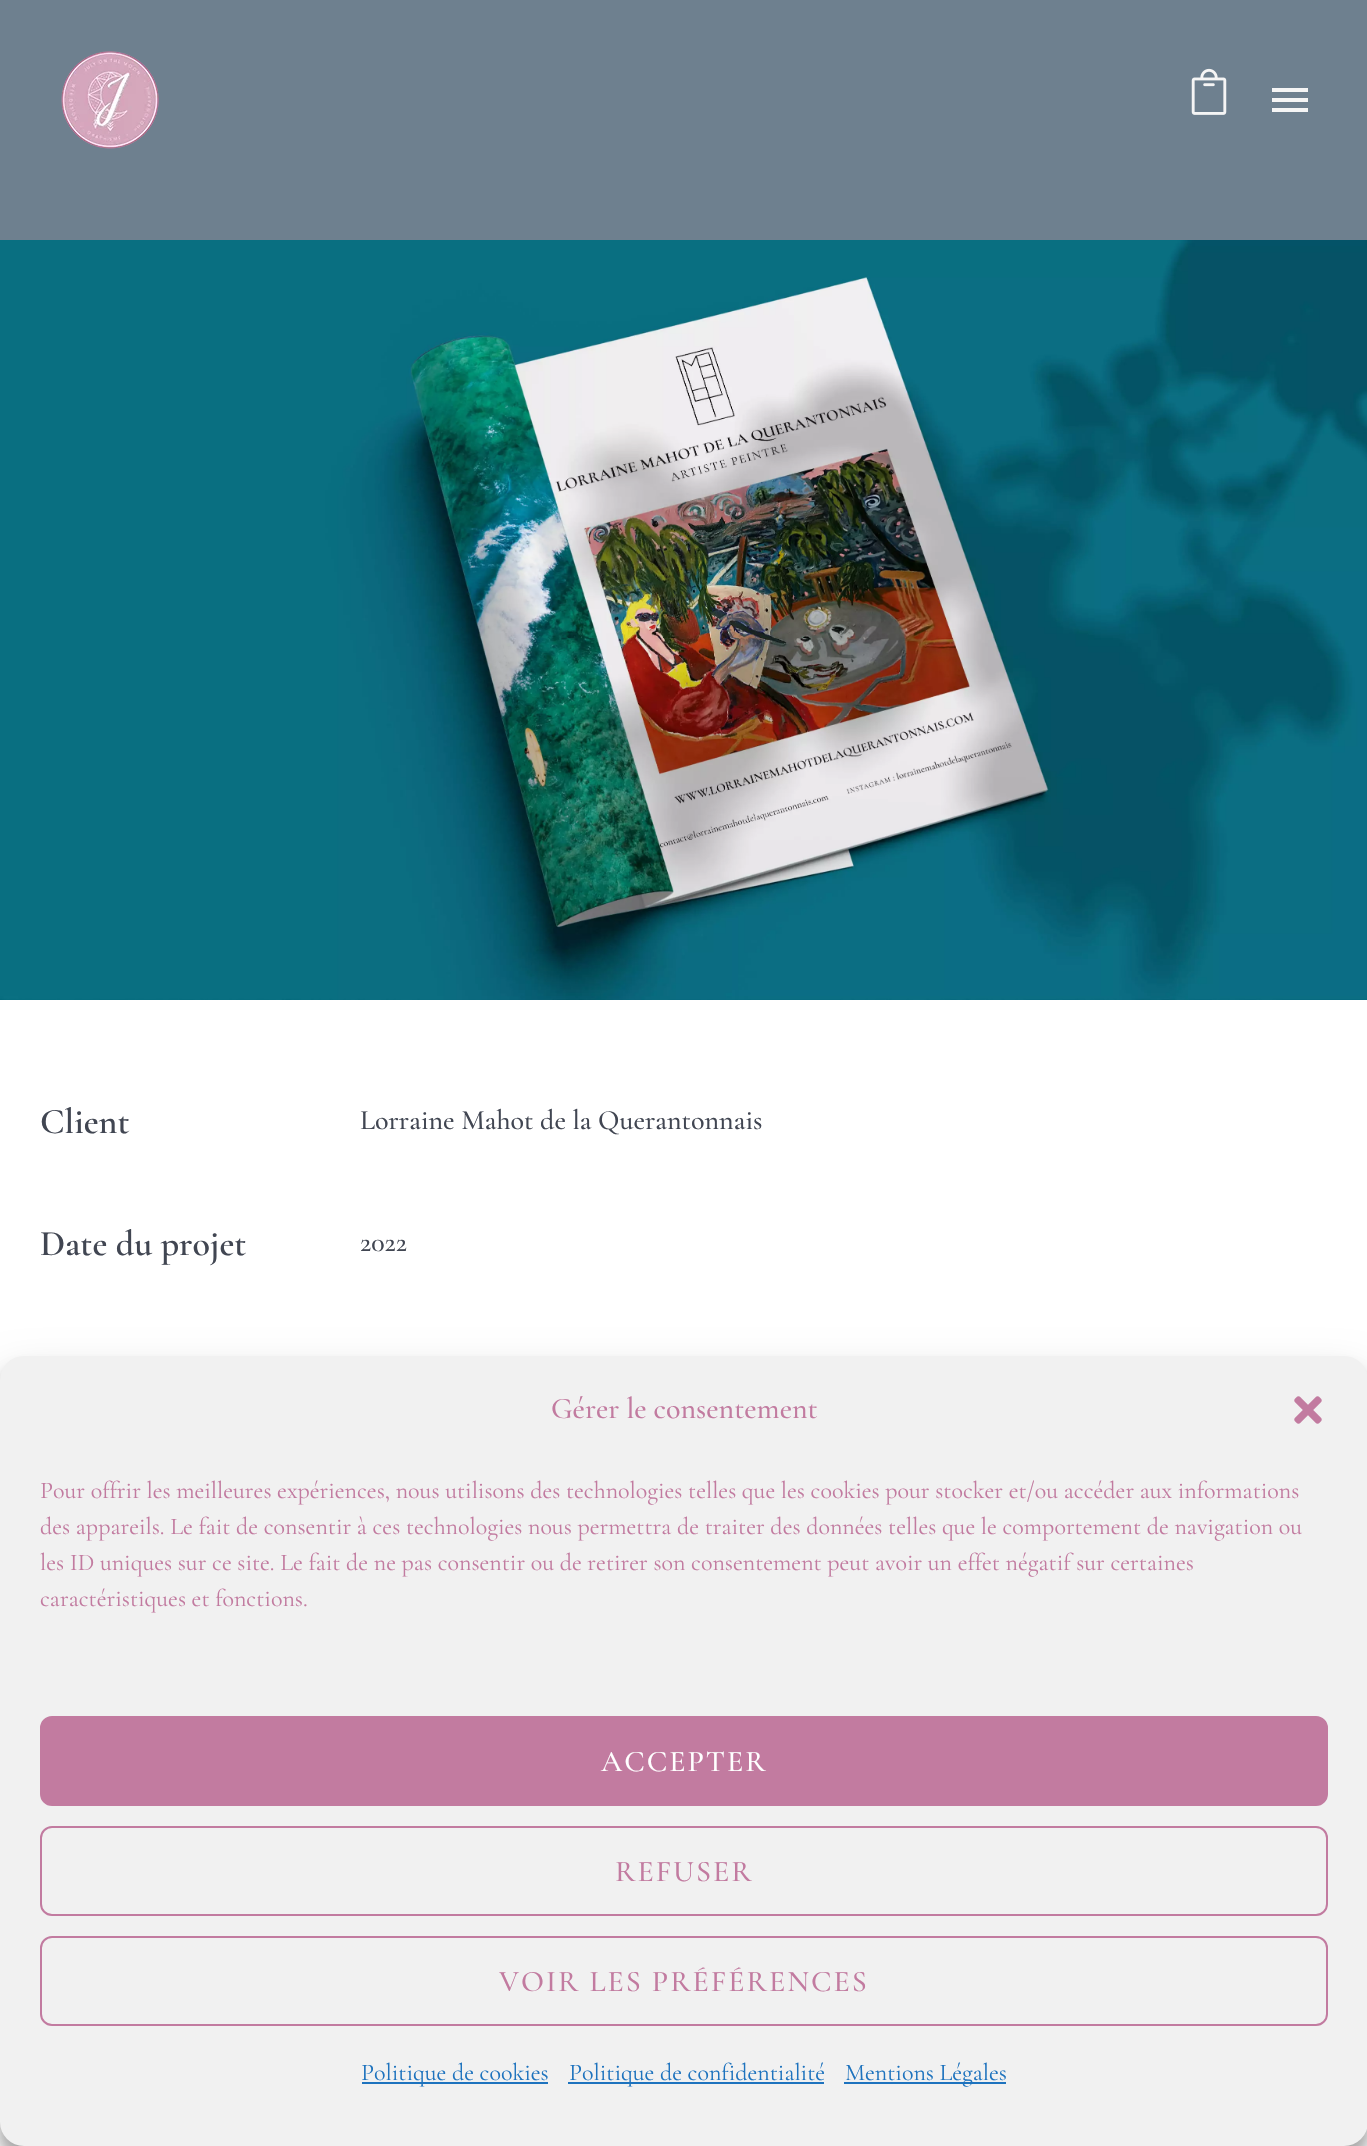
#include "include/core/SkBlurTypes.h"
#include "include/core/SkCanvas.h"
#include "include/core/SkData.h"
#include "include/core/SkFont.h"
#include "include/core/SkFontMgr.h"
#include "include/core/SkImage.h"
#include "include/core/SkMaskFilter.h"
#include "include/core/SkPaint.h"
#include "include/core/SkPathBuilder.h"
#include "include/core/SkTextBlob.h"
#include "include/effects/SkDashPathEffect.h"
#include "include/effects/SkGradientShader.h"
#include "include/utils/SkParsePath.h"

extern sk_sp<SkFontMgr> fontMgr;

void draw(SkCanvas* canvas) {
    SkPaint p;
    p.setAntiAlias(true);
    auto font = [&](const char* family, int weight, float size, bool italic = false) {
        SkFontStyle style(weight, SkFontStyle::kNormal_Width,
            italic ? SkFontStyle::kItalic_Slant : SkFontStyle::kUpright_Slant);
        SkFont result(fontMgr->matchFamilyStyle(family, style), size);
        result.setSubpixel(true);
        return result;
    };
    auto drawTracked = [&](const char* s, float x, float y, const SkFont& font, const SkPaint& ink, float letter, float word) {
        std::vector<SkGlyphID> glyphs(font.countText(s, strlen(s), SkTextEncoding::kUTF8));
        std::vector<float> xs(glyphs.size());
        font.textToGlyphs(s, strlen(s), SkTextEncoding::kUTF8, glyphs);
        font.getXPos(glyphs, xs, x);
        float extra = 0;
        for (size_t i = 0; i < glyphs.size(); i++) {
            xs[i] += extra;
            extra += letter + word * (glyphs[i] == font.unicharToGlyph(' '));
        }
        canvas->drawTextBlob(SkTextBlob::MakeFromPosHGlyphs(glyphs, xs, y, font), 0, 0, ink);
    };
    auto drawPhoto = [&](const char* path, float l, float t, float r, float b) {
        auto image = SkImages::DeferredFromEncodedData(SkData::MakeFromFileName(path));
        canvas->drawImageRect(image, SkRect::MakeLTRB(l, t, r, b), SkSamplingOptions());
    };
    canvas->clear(0xFFFFFFFF);
    p.setColor(0xFF6E808F);
    canvas->drawRect(SkRect::MakeLTRB(0, 0, 1367, 240), p);
    drawPhoto("media/1.png", 61, 51, 159, 149);
    drawPhoto("media/2.png", 1191, 68, 1227, 115);
    {
        const struct { float l, t, r, b; SkColor color; } items[] = {
            {1272, 88, 1308, 92, 0xFFF5F5F5},
            {1272, 98, 1308, 102, 0xFFF5F5F5},
            {1272, 108, 1308, 112, 0xFFF5F5F5},
        };
        for (auto [l, t, r, b, color] : items) {
            p.setColor(color);
            canvas->drawRect(SkRect::MakeLTRB(l, t, r, b), p);
        }
    }
    drawPhoto("media/3.png", 0, 240, 1367, 1000);
    auto font1 = font("Cormorant Garamond", 600, 36);
    p.setColor(0xFF414652);
    canvas->drawString("Client", 40, 1133, font1, p);
    auto font2 = font("Cormorant Garamond", 500, 28);
    canvas->drawString("Lorraine Mahot de la Querantonnais", 360, 1129, font2, p);
    canvas->drawString("Date du projet", 40, 1255, font1, p);
    canvas->drawString("2022", 360, 1251, font2, p);
    p.setColor(0x3B000000);
    p.setMaskFilter(SkMaskFilter::MakeBlur(kNormal_SkBlurStyle, 6));
    canvas->drawRoundRect(SkRect::MakeLTRB(0, 1368, 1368, 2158), 24, 24, p);
    p.setMaskFilter(nullptr);
    p.setColor(0x30000000);
    p.setMaskFilter(SkMaskFilter::MakeBlur(kNormal_SkBlurStyle, 20));
    canvas->drawRoundRect(SkRect::MakeLTRB(0, 1376, 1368, 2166), 24, 24, p);
    p.setMaskFilter(nullptr);
    p.setColor(0xFFF1F1F1);
    canvas->drawRoundRect(SkRect::MakeLTRB(0, 1356, 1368, 2146), 24, 24, p);
    auto font3 = font("Cormorant Garamond", 500, 30);
    p.setColor(0xFFC27BA0);
    canvas->drawString("Gérer le consentement", 551, 1418, font3, p);
    drawPhoto("media/4.png", 1294, 1396, 1322, 1424);
    auto font4 = font("Cormorant Garamond", 400, 24);
    {
        const struct { const char* s; float x, y; } items[] = {
            {"Pour offrir les meilleures expériences, nous utilisons des technologies telles que les cookies pour stocker et/ou accéder aux informations", 40, 1498},
            {"des appareils. Le fait de consentir à ces technologies nous permettra de traiter des données telles que le comportement de navigation ou", 40, 1534},
            {"les ID uniques sur ce site. Le fait de ne pas consentir ou de retirer son consentement peut avoir un effet négatif sur certaines", 40, 1570},
            {"caractéristiques et fonctions.", 40, 1606},
        };
        for (auto [s, x, y] : items) {
            canvas->drawString(s, x, y, font4, p);
        }
    }
    canvas->drawRoundRect(SkRect::MakeLTRB(41, 1717, 1327, 1805), 11, 11, p);
    p.setStyle(SkPaint::kStroke_Style);
    p.setStrokeWidth(2);
    canvas->drawRoundRect(SkRect::MakeLTRB(41, 1717, 1327, 1805), 11, 11, p);
    p.setStyle(SkPaint::kFill_Style);
    p.setColor(0xFFFFFFFF);
    drawTracked("ACCEPTER", 601, 1771, font3, p, 2, 0);
    p.setStyle(SkPaint::kStroke_Style);
    p.setColor(0xFFC27BA0);
    canvas->drawRoundRect(SkRect::MakeLTRB(41, 1827, 1327, 1915), 11, 11, p);
    p.setStyle(SkPaint::kFill_Style);
    drawTracked("REFUSER", 615, 1881, font3, p, 2, 0);
    p.setStyle(SkPaint::kStroke_Style);
    canvas->drawRoundRect(SkRect::MakeLTRB(41, 1937, 1327, 2025), 11, 11, p);
    p.setStyle(SkPaint::kFill_Style);
    drawTracked("VOIR LES PRÉFÉRENCES", 499, 1991, font3, p, 2, 0);
    p.setColor(0xFF1E73BE);
    canvas->drawRect(SkRect::MakeLTRB(362, 2082, 548, 2084), p);
    canvas->drawString("Politique de cookies", 361, 2080, font4, p);
    canvas->drawRect(SkRect::MakeLTRB(568, 2082, 824, 2084), p);
    canvas->drawString("Politique de confidentialité", 569, 2080, font4, p);
    canvas->drawRect(SkRect::MakeLTRB(844, 2082, 1006, 2084), p);
    canvas->drawString("Mentions Légales", 845, 2080, font4, p);
}
